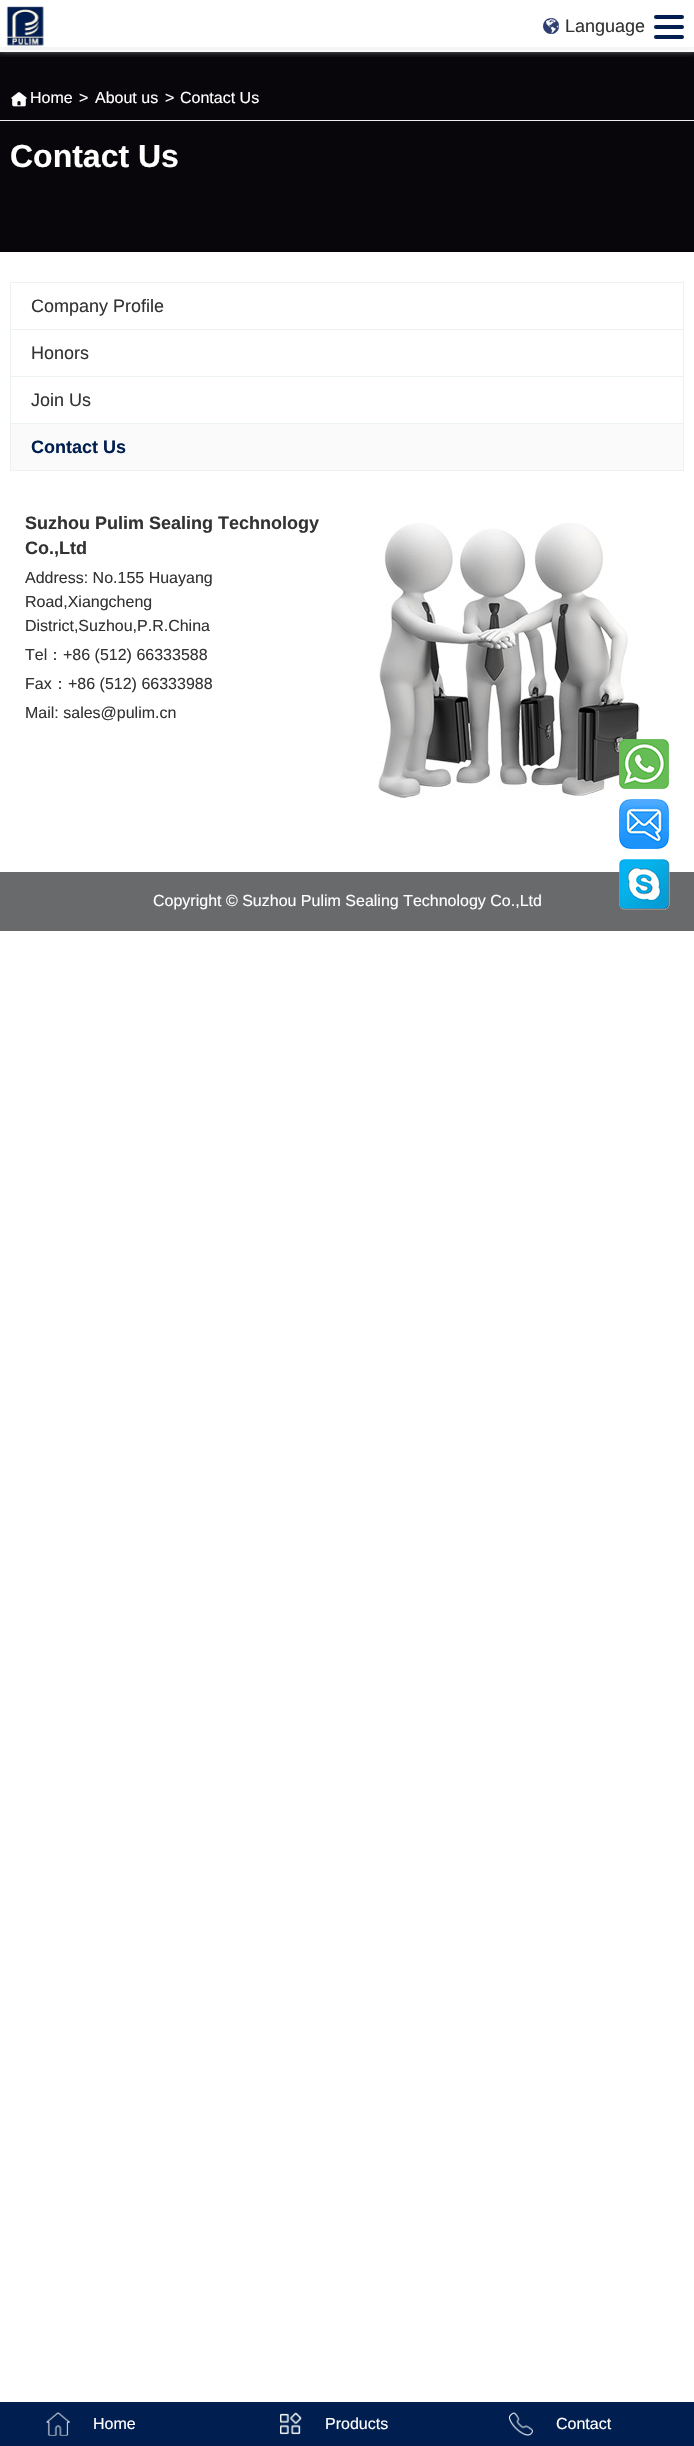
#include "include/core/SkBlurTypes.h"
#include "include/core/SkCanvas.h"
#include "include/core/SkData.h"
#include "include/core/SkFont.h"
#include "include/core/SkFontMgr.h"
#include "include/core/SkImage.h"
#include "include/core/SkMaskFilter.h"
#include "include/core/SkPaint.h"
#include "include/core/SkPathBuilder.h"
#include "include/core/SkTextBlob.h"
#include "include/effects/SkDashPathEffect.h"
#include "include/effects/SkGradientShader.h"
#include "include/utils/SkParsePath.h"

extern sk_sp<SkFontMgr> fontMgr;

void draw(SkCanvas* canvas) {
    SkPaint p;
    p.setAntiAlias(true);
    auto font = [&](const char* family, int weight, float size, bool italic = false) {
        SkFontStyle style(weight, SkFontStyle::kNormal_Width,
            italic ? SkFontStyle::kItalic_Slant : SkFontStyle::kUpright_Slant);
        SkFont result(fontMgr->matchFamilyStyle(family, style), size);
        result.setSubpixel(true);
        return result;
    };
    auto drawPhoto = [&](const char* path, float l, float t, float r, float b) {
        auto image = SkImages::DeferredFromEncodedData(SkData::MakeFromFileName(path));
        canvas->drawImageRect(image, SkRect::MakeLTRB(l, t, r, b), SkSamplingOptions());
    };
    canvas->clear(0xFFFFFFFF);
    p.setColor(0xFF08060B);
    canvas->drawRect(SkRect::MakeLTRB(0, 52, 694, 252), p);
    canvas->save();
    canvas->clipRect(SkRect::MakeLTRB(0, 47, 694, 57));
    p.setColor(0xFFEEEEEE);
    p.setMaskFilter(SkMaskFilter::MakeBlur(kNormal_SkBlurStyle, 4));
    canvas->drawRect(SkRect::MakeLTRB(-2, -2, 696, 49), p);
    p.setMaskFilter(nullptr);
    canvas->restore();
    drawPhoto("media/1.png", 6, 6, 44, 46);
    drawPhoto("media/2.png", 542, 18, 560, 34);
    auto font1 = font("Liberation Sans", 400, 18);
    p.setColor(0xFF333333);
    canvas->drawString("Language", 565, 32, font1, p);
    p.setColor(0xFF001F50);
    canvas->drawRoundRect(SkRect::MakeLTRB(654, 15, 684, 19), 2, 2, p);
    canvas->drawRoundRect(SkRect::MakeLTRB(654, 25, 684, 29), 2, 2, p);
    canvas->drawRoundRect(SkRect::MakeLTRB(654, 35, 684, 39), 2, 2, p);
    p.setColor(0xFFEEEEEE);
    canvas->drawRect(SkRect::MakeLTRB(0, 120, 694, 121), p);
    drawPhoto("media/3.png", 11, 92, 27, 107);
    auto font2 = font("Liberation Sans", 400, 16);
    p.setColor(0xFFFFFFFF);
    {
        const struct { const char* s; float x, y; } items[] = {
            {"Home", 30, 103},
            {">", 79, 103},
            {"About us", 95, 103},
            {">", 165, 103},
            {"Contact Us", 180, 103},
        };
        for (auto [s, x, y] : items) {
            canvas->drawString(s, x, y, font2, p);
        }
    }
    auto font3 = font("Liberation Sans", 700, 32);
    canvas->drawString("Contact Us", 10, 167, font3, p);
    p.setStyle(SkPaint::kStroke_Style);
    p.setStrokeWidth(1);
    p.setColor(0xFFECF2F4);
    canvas->drawRect(SkRect::MakeLTRB(10.5f, 282.5f, 683.5f, 470.5f), p);
    p.setStyle(SkPaint::kFill_Style);
    canvas->drawRect(SkRect::MakeLTRB(11, 329, 683, 330), p);
    p.setColor(0xFF333333);
    canvas->drawString("Company Profile", 31, 312, font1, p);
    p.setColor(0xFFECF2F4);
    canvas->drawRect(SkRect::MakeLTRB(11, 376, 683, 377), p);
    p.setColor(0xFF333333);
    canvas->drawString("Honors", 31, 359, font1, p);
    p.setColor(0xFFECF2F4);
    canvas->drawRect(SkRect::MakeLTRB(11, 423, 683, 424), p);
    p.setColor(0xFF333333);
    canvas->drawString("Join Us", 31, 406, font1, p);
    p.setColor(0xFFFAFAFA);
    canvas->drawRect(SkRect::MakeLTRB(11, 424, 683, 470), p);
    auto font4 = font("Liberation Sans", 700, 18);
    p.setColor(0xFF001E4F);
    canvas->drawString("Contact Us", 31, 453, font4, p);
    p.setColor(0xFF333333);
    canvas->drawString("Suzhou Pulim Sealing Technology", 25, 529, font4, p);
    drawPhoto("media/4.png", 378, 523, 641, 799);
    canvas->drawString("Co.,Ltd", 25, 554, font4, p);
    {
        const struct { const char* s; float x, y; } items[] = {
            {"Address: No.155 Huayang", 25, 583},
            {"Road,Xiangcheng", 25, 607},
            {"District,Suzhou,P.R.China", 25, 631},
            {"Tel", 25, 660},
        };
        for (auto [s, x, y] : items) {
            canvas->drawString(s, x, y, font2, p);
        }
    }
    auto font5 = font("WenQuanYi Zen Hei", 500, 16);
    canvas->drawString("：", 47, 660, font5, p);
    canvas->drawString("+86 (512) 66333588", 63, 660, font2, p);
    canvas->drawString("Fax", 25, 689, font2, p);
    canvas->drawString("：", 52, 689, font5, p);
    canvas->drawString("+86 (512) 66333988", 68, 689, font2, p);
    canvas->drawString("Mail: sales@pulim.cn", 25, 718, font2, p);
    p.setColor(0xFF696A6C);
    canvas->drawRect(SkRect::MakeLTRB(0, 872, 694, 931), p);
    p.setColor(0xFFFFFFFF);
    canvas->drawString("Copyright © Suzhou Pulim Sealing Technology Co.,Ltd", 153, 906, font2, p);
    drawPhoto("media/5.png", 619, 739, 669, 789);
    drawPhoto("media/6.png", 619, 799, 669, 849);
    drawPhoto("media/7.png", 619, 859, 670, 910);
    p.setColor(0xFF001F50);
    canvas->drawRect(SkRect::MakeLTRB(0, 2402, 694, 2446), p);
    drawPhoto("media/8.png", 46, 2412, 70, 2436);
    p.setColor(0xFFFFFFFF);
    canvas->drawString("Home", 93, 2429, font2, p);
    drawPhoto("media/9.png", 280, 2412, 302, 2435);
    canvas->drawString("Products", 325, 2429, font2, p);
    drawPhoto("media/10.png", 509, 2412, 533, 2436);
    canvas->drawString("Contact", 556, 2429, font2, p);
}
